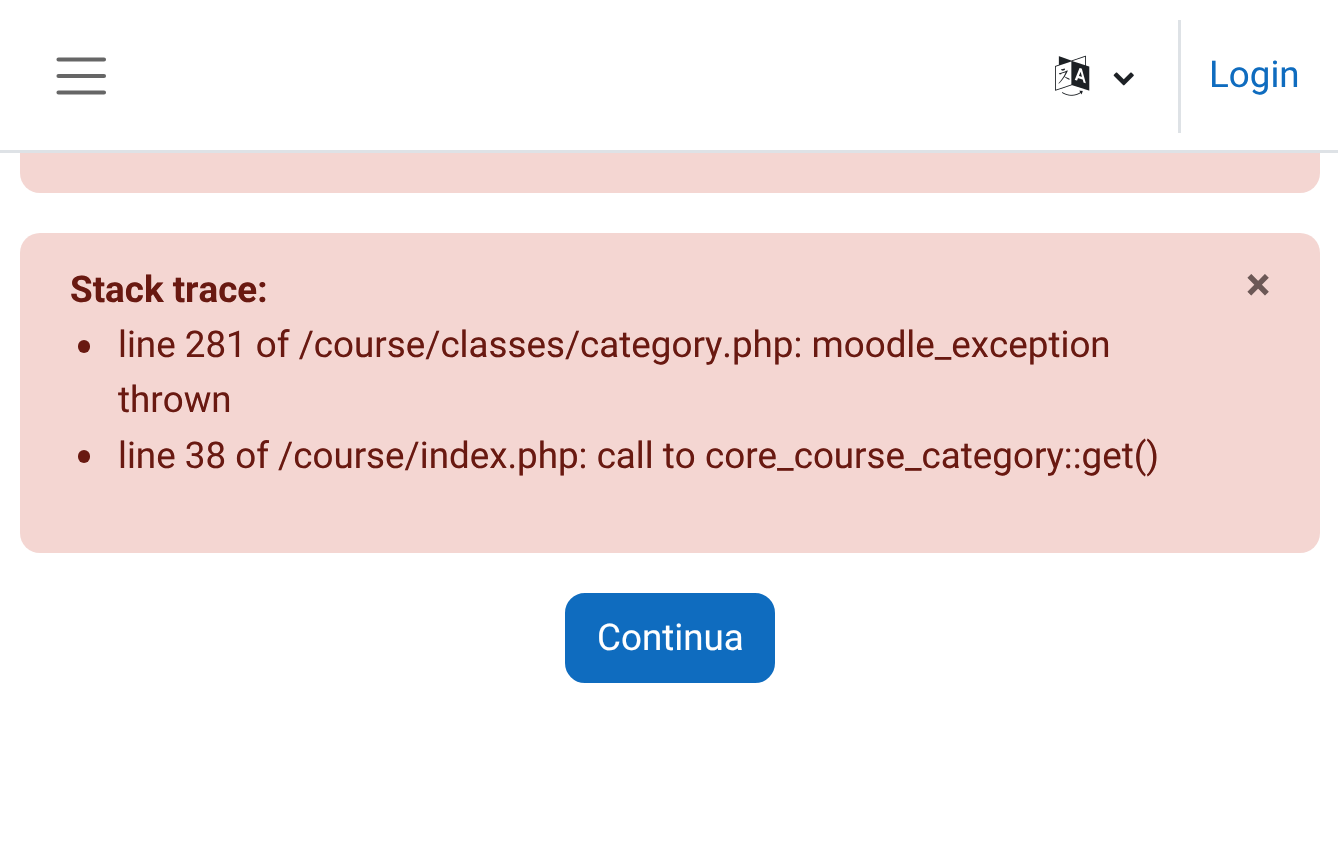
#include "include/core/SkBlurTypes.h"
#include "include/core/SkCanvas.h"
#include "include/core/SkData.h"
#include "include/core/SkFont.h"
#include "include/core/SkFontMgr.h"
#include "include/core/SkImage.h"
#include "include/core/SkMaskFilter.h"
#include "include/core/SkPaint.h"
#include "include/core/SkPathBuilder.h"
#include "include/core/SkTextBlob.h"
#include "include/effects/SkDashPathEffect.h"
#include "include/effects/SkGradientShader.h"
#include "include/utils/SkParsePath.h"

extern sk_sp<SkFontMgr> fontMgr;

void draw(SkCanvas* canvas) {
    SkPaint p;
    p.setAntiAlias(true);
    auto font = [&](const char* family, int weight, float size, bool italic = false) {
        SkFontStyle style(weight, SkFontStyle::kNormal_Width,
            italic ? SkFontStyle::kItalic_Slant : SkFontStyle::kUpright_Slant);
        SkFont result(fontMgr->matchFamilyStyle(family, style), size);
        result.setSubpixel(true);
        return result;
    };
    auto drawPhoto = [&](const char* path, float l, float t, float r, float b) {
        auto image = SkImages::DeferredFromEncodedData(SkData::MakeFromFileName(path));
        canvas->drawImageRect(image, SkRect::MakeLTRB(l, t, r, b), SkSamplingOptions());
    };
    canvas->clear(0xFFFFFFFF);
    p.setColor(0xFFF4D6D2);
    canvas->drawRoundRect(SkRect::MakeLTRB(20, 23, 1320, 193), 20, 20, p);
    p.setColor(0xFFFFFFFF);
    canvas->drawRect(SkRect::MakeLTRB(20, 23, 1320, 150), p);
    p.setColor(0xFFDEE2E6);
    canvas->drawRect(SkRect::MakeLTRB(0, 150, 1338, 153), p);
    p.setStyle(SkPaint::kStroke_Style);
    p.setStrokeWidth(4.1f);
    p.setStrokeCap(SkPaint::kRound_Cap);
    p.setColor(0xFF666666);
    canvas->drawPath(SkPathBuilder().moveTo(58.5f, 59.5f).lineTo(104, 59.5f).moveTo(58.5f, 76).lineTo(104, 76).moveTo(58.5f, 92.5f).lineTo(104, 92.5f).detach(), p);
    drawPhoto("media/1.png", 1055, 55, 1090, 96);
    drawPhoto("media/2.png", 1113, 72, 1134, 86);
    p.setStyle(SkPaint::kFill_Style);
    p.setColor(0xFFDEE2E6);
    canvas->drawRect(SkRect::MakeLTRB(1178, 20, 1181, 133), p);
    auto font1 = font("Roboto", 400, 36.75f);
    p.setColor(0xFF0F6CBF);
    canvas->drawString("Login", 1209, 87, font1, p);
    p.setColor(0xFFF4D6D2);
    canvas->drawRoundRect(SkRect::MakeLTRB(20, 233, 1320, 553), 20, 20, p);
    auto font2 = font("Roboto", 700, 36.75f);
    p.setColor(0xFF691911);
    canvas->drawString("Stack trace:", 70, 302, font2, p);
    auto font3 = font("Roboto", 700, 46);
    p.setColor(0xFF6C5856);
    canvas->drawString("×", 1246, 300, font3, p);
    p.setColor(0xFF691911);
    canvas->drawRoundRect(SkRect::MakeLTRB(78, 340, 90, 353), 6, 6, p);
    canvas->drawString("line 281 of /course/classes/category.php: moodle_exception", 118, 357, font1, p);
    canvas->drawString("thrown", 118, 412, font1, p);
    canvas->drawRoundRect(SkRect::MakeLTRB(78, 450, 90, 463), 6, 6, p);
    canvas->drawString("line 38 of /course/index.php: call to core_course_category::get()", 118, 468, font1, p);
    p.setColor(0xFF0F6CBF);
    canvas->drawRoundRect(SkRect::MakeLTRB(566.5f, 594.5f, 773.5f, 681.5f), 18.5f, 18.5f, p);
    p.setStyle(SkPaint::kStroke_Style);
    p.setStrokeWidth(3);
    p.setStrokeCap(SkPaint::kButt_Cap);
    canvas->drawRoundRect(SkRect::MakeLTRB(566.5f, 594.5f, 773.5f, 681.5f), 18.5f, 18.5f, p);
    p.setStyle(SkPaint::kFill_Style);
    p.setColor(0xFFFFFFFF);
    canvas->drawString("Continua", 597, 650, font1, p);
}
